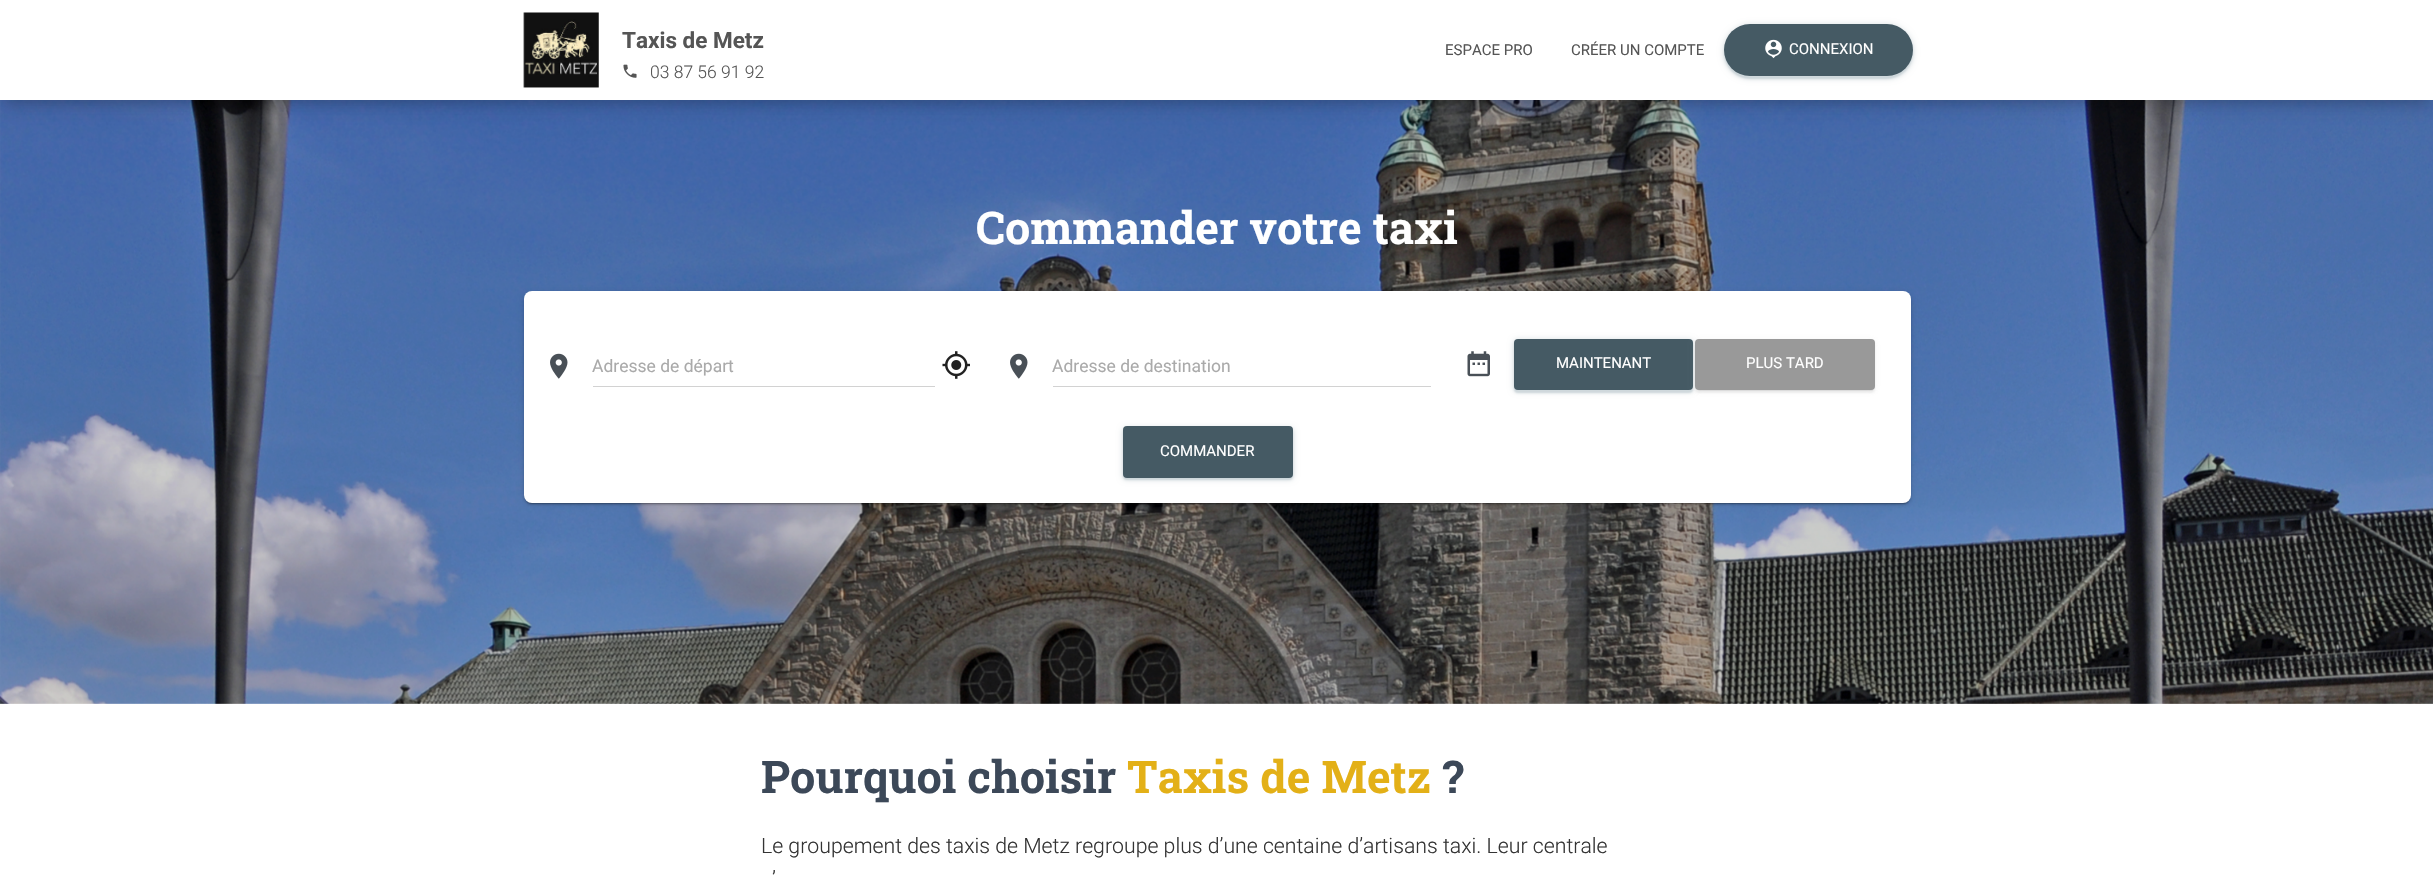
#include "include/core/SkBlurTypes.h"
#include "include/core/SkCanvas.h"
#include "include/core/SkData.h"
#include "include/core/SkFont.h"
#include "include/core/SkFontMgr.h"
#include "include/core/SkImage.h"
#include "include/core/SkMaskFilter.h"
#include "include/core/SkPaint.h"
#include "include/core/SkPathBuilder.h"
#include "include/core/SkTextBlob.h"
#include "include/effects/SkDashPathEffect.h"
#include "include/effects/SkGradientShader.h"
#include "include/utils/SkParsePath.h"

extern sk_sp<SkFontMgr> fontMgr;

void draw(SkCanvas* canvas) {
    SkPaint p;
    p.setAntiAlias(true);
    auto font = [&](const char* family, int weight, float size, bool italic = false) {
        SkFontStyle style(weight, SkFontStyle::kNormal_Width,
            italic ? SkFontStyle::kItalic_Slant : SkFontStyle::kUpright_Slant);
        SkFont result(fontMgr->matchFamilyStyle(family, style), size);
        result.setSubpixel(true);
        return result;
    };
    auto drawPhoto = [&](const char* path, float l, float t, float r, float b) {
        auto image = SkImages::DeferredFromEncodedData(SkData::MakeFromFileName(path));
        canvas->drawImageRect(image, SkRect::MakeLTRB(l, t, r, b), SkSamplingOptions());
    };
    canvas->clear(0xFFFFFFFF);
    drawPhoto("media/4.png", 0, 100, 2433, 704);
    p.setColor(0x26000000);
    p.setMaskFilter(SkMaskFilter::MakeBlur(kNormal_SkBlurStyle, 6));
    canvas->drawRect(SkRect::MakeLTRB(6, 15, 2428, 103), p);
    p.setMaskFilter(nullptr);
    p.setColor(0x1F000000);
    p.setMaskFilter(SkMaskFilter::MakeBlur(kNormal_SkBlurStyle, 11));
    canvas->drawRect(SkRect::MakeLTRB(0, 5, 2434, 105), p);
    p.setMaskFilter(nullptr);
    p.setColor(0xFFFFFFFF);
    canvas->drawRect(SkRect::MakeLTRB(0, 0, 2433, 100), p);
    drawPhoto("media/1.png", 523, 12, 599, 88);
    auto font1 = font("Roboto", 700, 22.5f);
    p.setColor(0xFF555555);
    canvas->drawString("Taxis de Metz", 622, 48, font1, p);
    drawPhoto("media/2.png", 623, 64, 637, 78);
    auto font2 = font("Roboto", 300, 17.5f);
    canvas->drawString("03 87 56 91 92", 650, 78, font2, p);
    auto font3 = font("Roboto", 400, 15);
    canvas->drawString("ESPACE PRO", 1445, 55, font3, p);
    canvas->drawString("CRÉER UN COMPTE", 1571, 55, font3, p);
    p.setColor(0xFFCFD8DC);
    p.setMaskFilter(SkMaskFilter::MakeBlur(kNormal_SkBlurStyle, 3));
    canvas->drawRoundRect(SkRect::MakeLTRB(1724, 25, 1913, 78), 26.5f, 26.5f, p);
    p.setMaskFilter(nullptr);
    p.setColor(0xFFB0BEC5);
    p.setMaskFilter(SkMaskFilter::MakeBlur(kNormal_SkBlurStyle, 0.5f));
    canvas->drawRoundRect(SkRect::MakeLTRB(1726, 30, 1910, 78), 24, 24, p);
    p.setMaskFilter(nullptr);
    p.setColor(0xFFCFD8DC);
    p.setMaskFilter(SkMaskFilter::MakeBlur(kNormal_SkBlurStyle, 1));
    canvas->drawRoundRect(SkRect::MakeLTRB(1724, 26, 1913, 79), 26.5f, 26.5f, p);
    p.setMaskFilter(nullptr);
    p.setColor(0xFF455A64);
    canvas->drawRoundRect(SkRect::MakeLTRB(1724, 24, 1913, 76), 26, 26, p);
    drawPhoto("media/3.png", 1765, 39, 1782, 59);
    p.setColor(0xFFFFFFFF);
    canvas->drawString("CONNEXION", 1789, 54, font3, p);
    auto font4 = font("Roboto Slab", 700, 45);
    canvas->drawString("Commander votre taxi", 976, 244, font4, p);
    p.setColor(0x1F000000);
    p.setMaskFilter(SkMaskFilter::MakeBlur(kNormal_SkBlurStyle, 3));
    canvas->drawRoundRect(SkRect::MakeLTRB(524, 293, 1911, 504), 8, 8, p);
    p.setMaskFilter(nullptr);
    p.setColor(0x33000000);
    p.setMaskFilter(SkMaskFilter::MakeBlur(kNormal_SkBlurStyle, 0.5f));
    canvas->drawRoundRect(SkRect::MakeLTRB(526, 298, 1909, 504), 5, 5, p);
    p.setMaskFilter(nullptr);
    p.setColor(0x24000000);
    p.setMaskFilter(SkMaskFilter::MakeBlur(kNormal_SkBlurStyle, 1));
    canvas->drawRoundRect(SkRect::MakeLTRB(524, 294, 1911, 505), 8, 8, p);
    p.setMaskFilter(nullptr);
    p.setColor(0xFFFFFFFF);
    canvas->drawRoundRect(SkRect::MakeLTRB(524, 291, 1911, 503), 8, 8, p);
    drawPhoto("media/5.png", 550, 353, 568, 379);
    p.setColor(0xFFD2D2D2);
    canvas->drawRect(SkRect::MakeLTRB(593, 386, 935, 387), p);
    auto font5 = font("Roboto", 400, 17.5f);
    p.setColor(0xFFAAAAAA);
    canvas->drawString("Adresse de départ", 592, 372, font5, p);
    drawPhoto("media/6.png", 942, 351, 970, 379);
    drawPhoto("media/5.png", 1010, 353, 1028, 379);
    p.setColor(0xFFD2D2D2);
    canvas->drawRect(SkRect::MakeLTRB(1053, 386, 1431, 387), p);
    p.setColor(0xFFAAAAAA);
    canvas->drawString("Adresse de destination", 1052, 372, font5, p);
    drawPhoto("media/7.png", 1467, 351, 1490, 377);
    p.setColor(0xFFCFD8DC);
    p.setMaskFilter(SkMaskFilter::MakeBlur(kNormal_SkBlurStyle, 3));
    canvas->drawRoundRect(SkRect::MakeLTRB(1514, 340, 1693, 391), 4, 4, p);
    p.setMaskFilter(nullptr);
    p.setColor(0xFFB0BEC5);
    p.setMaskFilter(SkMaskFilter::MakeBlur(kNormal_SkBlurStyle, 0.5f));
    canvas->drawRoundRect(SkRect::MakeLTRB(1516, 345, 1690, 391), 1, 1, p);
    p.setMaskFilter(nullptr);
    p.setColor(0xFFCFD8DC);
    p.setMaskFilter(SkMaskFilter::MakeBlur(kNormal_SkBlurStyle, 1));
    canvas->drawRoundRect(SkRect::MakeLTRB(1514, 341, 1693, 393), 4, 4, p);
    p.setMaskFilter(nullptr);
    p.setColor(0xFF455A64);
    canvas->drawRoundRect(SkRect::MakeLTRB(1514, 339, 1693, 390), 4, 4, p);
    p.setColor(0xFFFFFFFF);
    canvas->drawString("MAINTENANT", 1556, 368, font3, p);
    p.setColor(0x1F999999);
    p.setMaskFilter(SkMaskFilter::MakeBlur(kNormal_SkBlurStyle, 3));
    canvas->drawRoundRect(SkRect::MakeLTRB(1695, 340, 1875, 391), 4, 4, p);
    p.setMaskFilter(nullptr);
    p.setColor(0x33999999);
    p.setMaskFilter(SkMaskFilter::MakeBlur(kNormal_SkBlurStyle, 0.5f));
    canvas->drawRoundRect(SkRect::MakeLTRB(1698, 345, 1873, 391), 1, 1, p);
    p.setMaskFilter(nullptr);
    p.setColor(0x24999999);
    p.setMaskFilter(SkMaskFilter::MakeBlur(kNormal_SkBlurStyle, 1));
    canvas->drawRoundRect(SkRect::MakeLTRB(1695, 341, 1875, 393), 4, 4, p);
    p.setMaskFilter(nullptr);
    p.setColor(0xFF999999);
    canvas->drawRoundRect(SkRect::MakeLTRB(1695, 339, 1875, 390), 4, 4, p);
    p.setColor(0xFFFFFFFF);
    canvas->drawString("PLUS TARD", 1746, 368, font3, p);
    p.setColor(0xFFCFD8DC);
    p.setMaskFilter(SkMaskFilter::MakeBlur(kNormal_SkBlurStyle, 3));
    canvas->drawRoundRect(SkRect::MakeLTRB(1123, 428, 1293, 479), 4, 4, p);
    p.setMaskFilter(nullptr);
    p.setColor(0xFFB0BEC5);
    p.setMaskFilter(SkMaskFilter::MakeBlur(kNormal_SkBlurStyle, 0.5f));
    canvas->drawRoundRect(SkRect::MakeLTRB(1125, 433, 1290, 479), 1, 1, p);
    p.setMaskFilter(nullptr);
    p.setColor(0xFFCFD8DC);
    p.setMaskFilter(SkMaskFilter::MakeBlur(kNormal_SkBlurStyle, 1));
    canvas->drawRoundRect(SkRect::MakeLTRB(1123, 429, 1293, 480), 4, 4, p);
    p.setMaskFilter(nullptr);
    p.setColor(0xFF455A64);
    canvas->drawRoundRect(SkRect::MakeLTRB(1123, 426, 1293, 478), 4, 4, p);
    p.setColor(0xFFFFFFFF);
    canvas->drawString("COMMANDER", 1160, 456, font3, p);
    p.setColor(0xFF3C4858);
    canvas->drawString("Pourquoi choisir", 761, 793, font4, p);
    p.setColor(0xFFE3B017);
    canvas->drawString("Taxis de Metz", 1127, 793, font4, p);
    p.setColor(0xFF3C4858);
    canvas->drawString("?", 1442, 793, font4, p);
    auto font6 = font("Roboto", 300, 21.25f);
    p.setColor(0xFF343434);
    canvas->drawString("Le groupement des taxis de Metz regroupe plus d’une centaine d’artisans taxi. Leur centrale", 761, 853, font6, p);
    canvas->drawString("’", 772, 886, font6, p);
}
